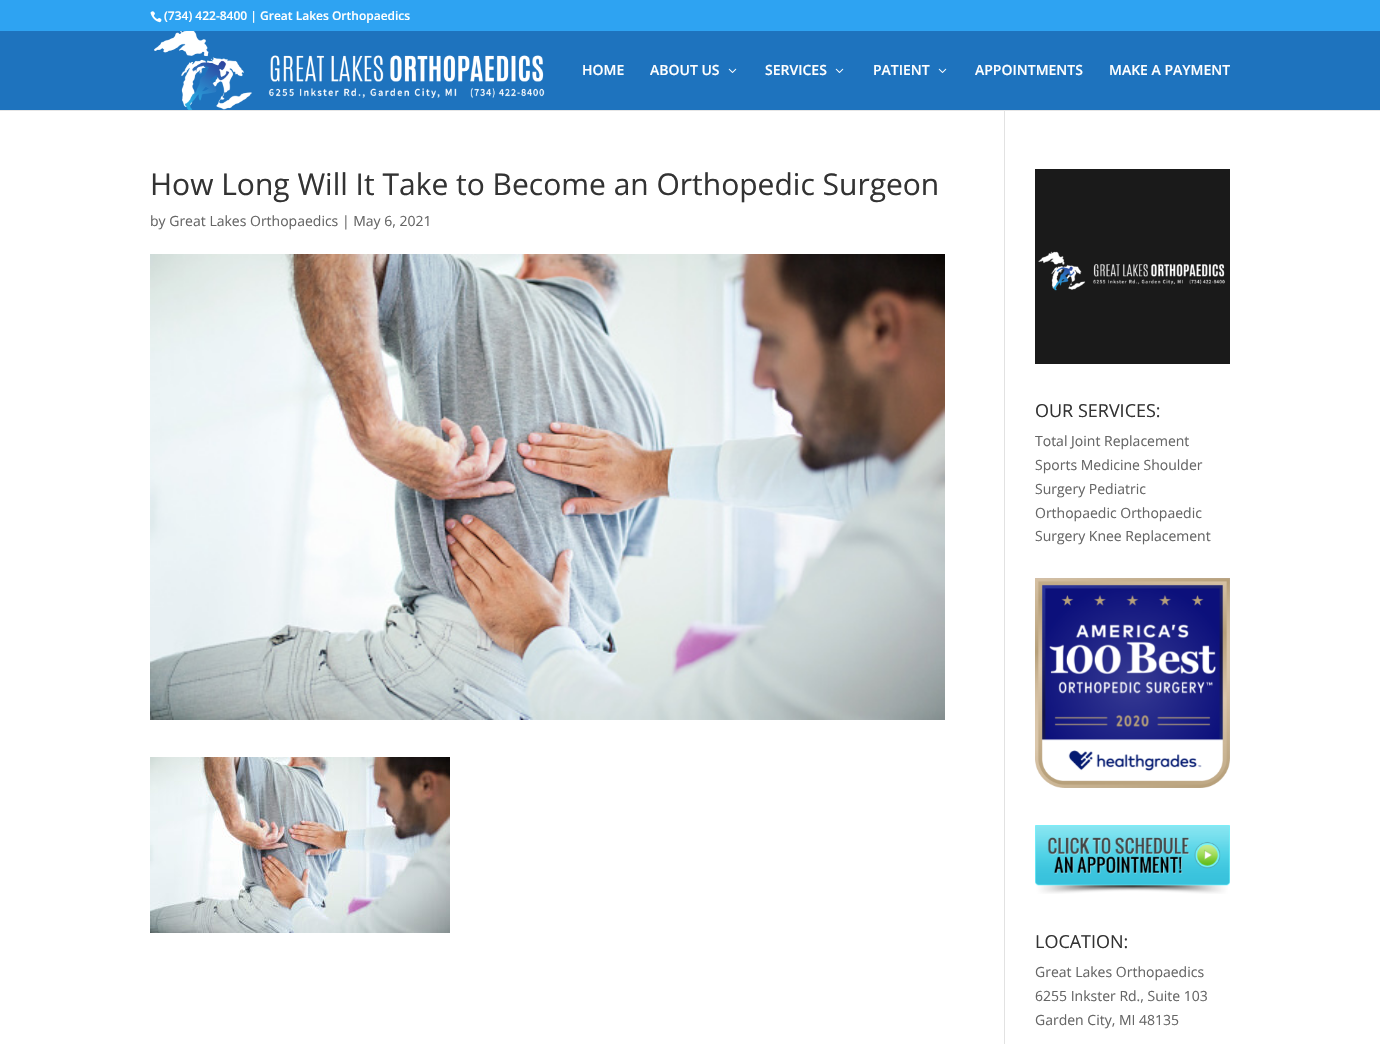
#include "include/core/SkBlurTypes.h"
#include "include/core/SkCanvas.h"
#include "include/core/SkData.h"
#include "include/core/SkFont.h"
#include "include/core/SkFontMgr.h"
#include "include/core/SkImage.h"
#include "include/core/SkMaskFilter.h"
#include "include/core/SkPaint.h"
#include "include/core/SkPathBuilder.h"
#include "include/core/SkTextBlob.h"
#include "include/effects/SkDashPathEffect.h"
#include "include/effects/SkGradientShader.h"
#include "include/utils/SkParsePath.h"

extern sk_sp<SkFontMgr> fontMgr;

void draw(SkCanvas* canvas) {
    SkPaint p;
    p.setAntiAlias(true);
    auto font = [&](const char* family, int weight, float size, bool italic = false) {
        SkFontStyle style(weight, SkFontStyle::kNormal_Width,
            italic ? SkFontStyle::kItalic_Slant : SkFontStyle::kUpright_Slant);
        SkFont result(fontMgr->matchFamilyStyle(family, style), size);
        result.setSubpixel(true);
        return result;
    };
    auto drawPhoto = [&](const char* path, float l, float t, float r, float b) {
        auto image = SkImages::DeferredFromEncodedData(SkData::MakeFromFileName(path));
        canvas->drawImageRect(image, SkRect::MakeLTRB(l, t, r, b), SkSamplingOptions());
    };
    canvas->clear(0xFFFFFFFF);
    p.setColor(0xFF2EA3F2);
    canvas->drawRect(SkRect::MakeLTRB(0, 0, 1380, 31), p);
    drawPhoto("media/1.png", 150, 11, 162, 23);
    auto font1 = font("Open Sans", 600, 12);
    p.setColor(0xFFFFFFFF);
    canvas->drawString("(734) 422-8400 | Great Lakes Orthopaedics", 164, 20, font1, p);
    p.setColor(0xFFE6E6E6);
    canvas->drawRect(SkRect::MakeLTRB(0, 110, 1380, 111), p);
    p.setColor(0xFF1E73BE);
    canvas->drawRect(SkRect::MakeLTRB(0, 31, 1380, 110), p);
    drawPhoto("media/2.png", 154, 31, 545, 110);
    auto font2 = font("Open Sans", 600, 14);
    p.setColor(0xFFFFFFFF);
    canvas->drawString("HOME", 582, 75, font2, p);
    canvas->drawString("ABOUT US", 650, 75, font2, p);
    drawPhoto("media/3.png", 728, 68, 737, 73);
    canvas->drawString("SERVICES", 765, 75, font2, p);
    drawPhoto("media/3.png", 835, 68, 844, 73);
    canvas->drawString("PATIENT", 873, 75, font2, p);
    drawPhoto("media/3.png", 938, 68, 947, 73);
    canvas->drawString("APPOINTMENTS", 975, 75, font2, p);
    canvas->drawString("MAKE A PAYMENT", 1109, 75, font2, p);
    p.setColor(0xFFE2E2E2);
    canvas->drawRect(SkRect::MakeLTRB(1004, 111, 1005, 1044), p);
    auto font3 = font("Open Sans", 400, 30);
    p.setColor(0xFF333333);
    canvas->drawString("How Long Will It Take to Become an Orthopedic Surgeon", 150, 195, font3, p);
    auto font4 = font("Open Sans", 400, 14);
    p.setColor(0xFF666666);
    canvas->drawString("by Great Lakes Orthopaedics | May 6, 2021", 150, 226, font4, p);
    drawPhoto("media/4.png", 150, 254, 945, 720);
    drawPhoto("media/5.png", 150, 757, 450, 933);
    drawPhoto("media/6.png", 1035, 169, 1230, 364);
    auto font5 = font("Open Sans", 400, 18);
    p.setColor(0xFF333333);
    canvas->drawString("OUR SERVICES:", 1035, 417, font5, p);
    p.setColor(0xFF666666);
    {
        const struct { const char* s; float x, y; } items[] = {
            {"Total Joint Replacement", 1035, 446},
            {"Sports Medicine Shoulder", 1035, 470},
            {"Surgery Pediatric", 1035, 494},
            {"Orthopaedic Orthopaedic", 1035, 518},
            {"Surgery Knee Replacement", 1035, 541},
        };
        for (auto [s, x, y] : items) {
            canvas->drawString(s, x, y, font4, p);
        }
    }
    drawPhoto("media/7.png", 1035, 578, 1230, 788);
    drawPhoto("media/8.png", 1035, 825, 1230, 894);
    p.setColor(0xFF333333);
    canvas->drawString("LOCATION:", 1035, 948, font5, p);
    p.setColor(0xFF666666);
    {
        const struct { const char* s; float x, y; } items[] = {
            {"Great Lakes Orthopaedics", 1035, 977},
            {"6255 Inkster Rd., Suite 103", 1035, 1001},
            {"Garden City, MI 48135", 1035, 1025},
        };
        for (auto [s, x, y] : items) {
            canvas->drawString(s, x, y, font4, p);
        }
    }
}
